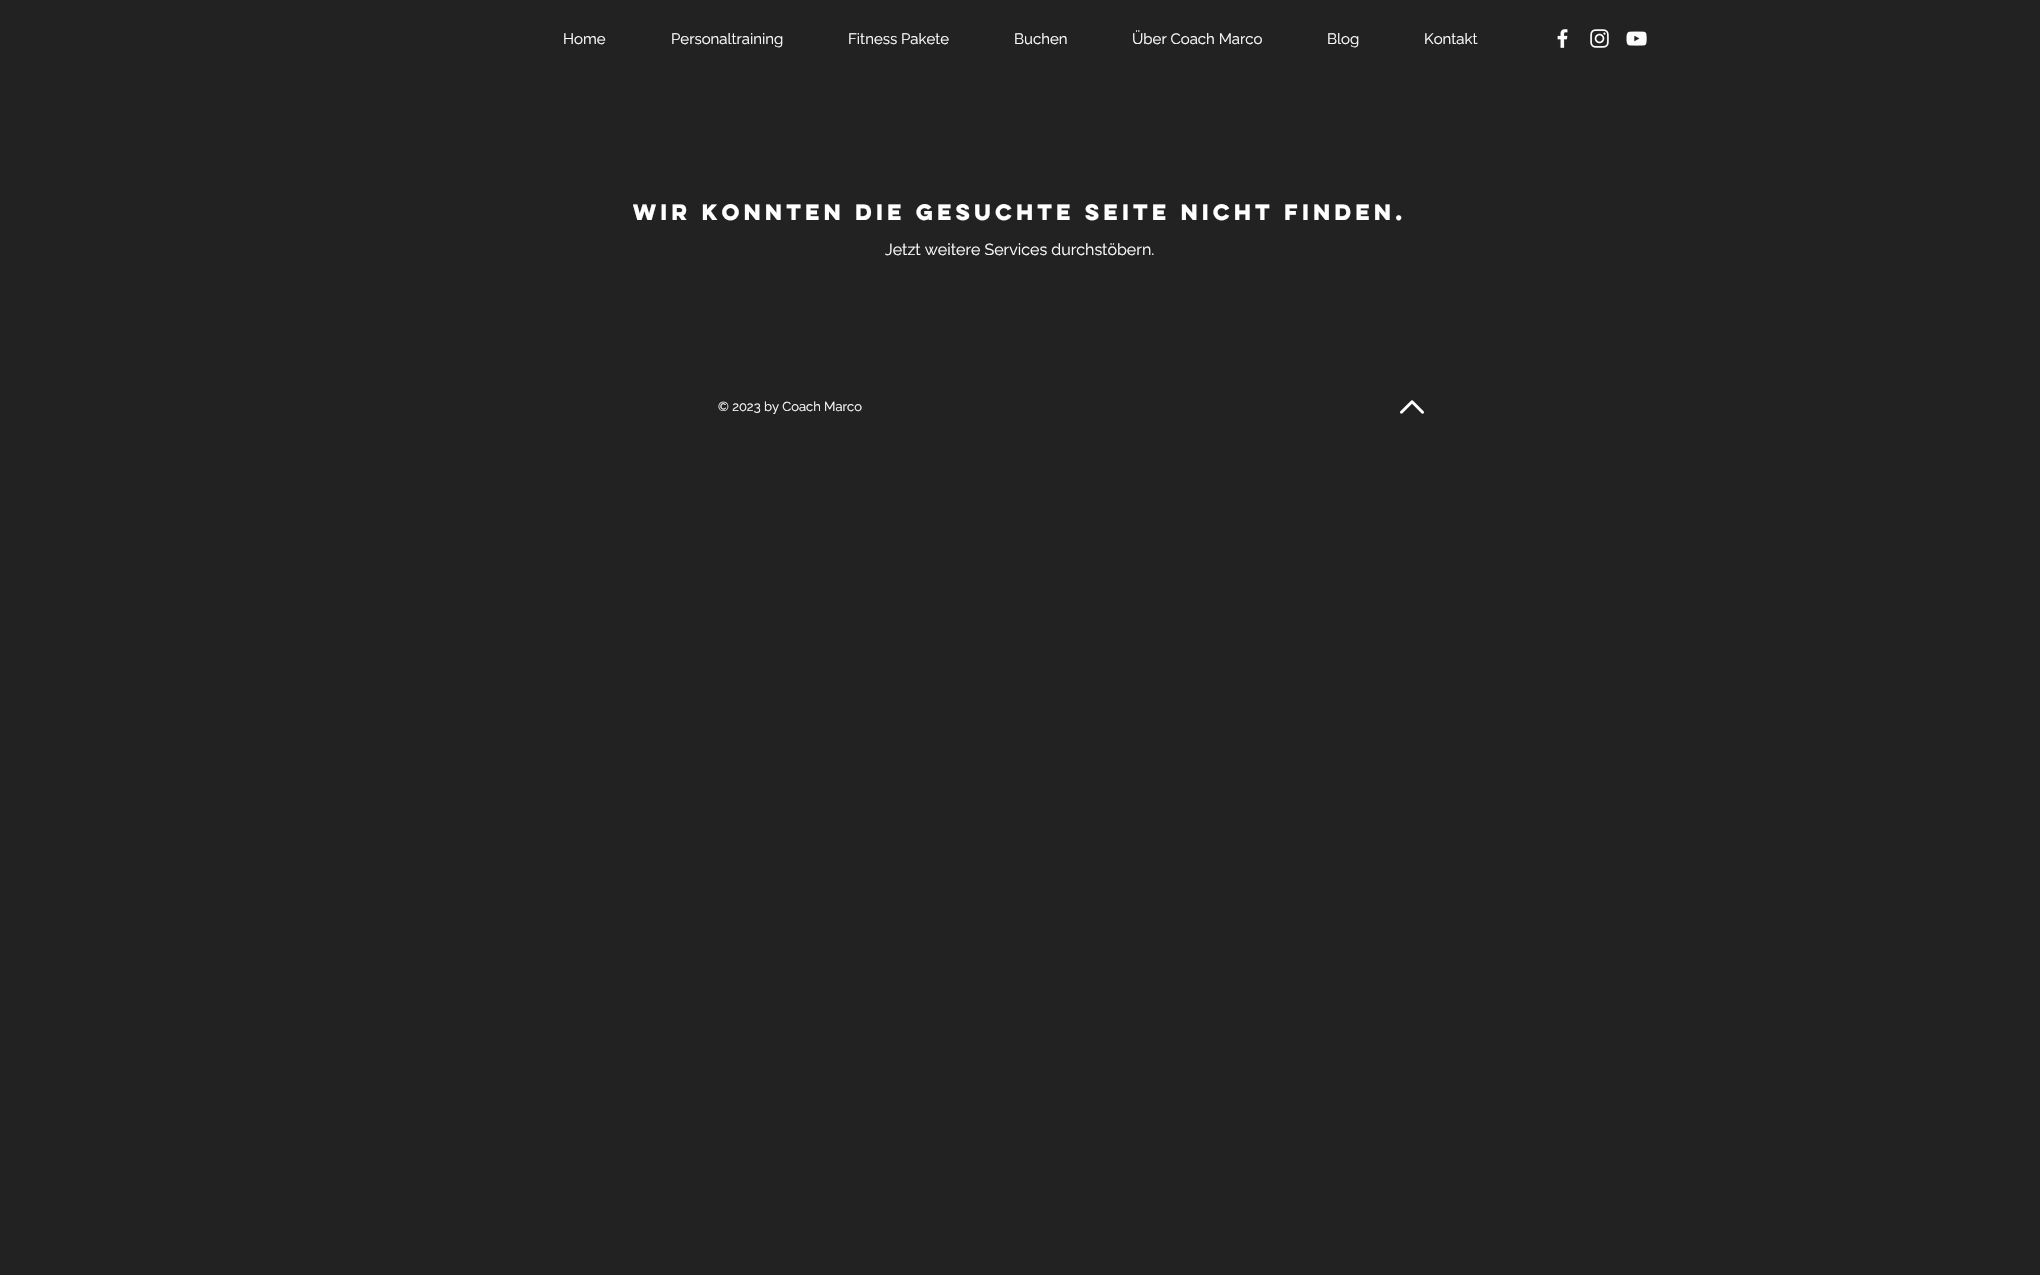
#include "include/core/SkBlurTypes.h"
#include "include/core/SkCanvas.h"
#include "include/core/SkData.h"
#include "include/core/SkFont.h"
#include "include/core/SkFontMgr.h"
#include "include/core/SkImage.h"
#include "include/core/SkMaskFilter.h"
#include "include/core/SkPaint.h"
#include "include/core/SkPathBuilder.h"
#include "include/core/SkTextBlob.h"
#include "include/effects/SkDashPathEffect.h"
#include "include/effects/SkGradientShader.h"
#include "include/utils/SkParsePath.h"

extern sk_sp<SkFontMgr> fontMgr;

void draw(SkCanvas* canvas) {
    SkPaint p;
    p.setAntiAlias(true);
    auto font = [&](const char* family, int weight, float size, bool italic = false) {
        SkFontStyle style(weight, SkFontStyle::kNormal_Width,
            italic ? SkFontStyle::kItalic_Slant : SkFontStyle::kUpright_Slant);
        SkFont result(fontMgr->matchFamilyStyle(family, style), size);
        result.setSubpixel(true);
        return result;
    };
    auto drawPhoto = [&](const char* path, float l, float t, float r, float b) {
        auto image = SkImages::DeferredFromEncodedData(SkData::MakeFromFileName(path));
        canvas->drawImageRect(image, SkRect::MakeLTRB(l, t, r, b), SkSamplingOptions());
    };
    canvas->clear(0xFF222222);
    auto font1 = font("Raleway", 400, 15);
    p.setColor(0xFFFFFFFF);
    {
        const struct { const char* s; float x, y; } items[] = {
            {"Home", 563, 44},
            {"Personaltraining", 671, 44},
            {"Fitness Pakete", 848, 44},
            {"Buchen", 1014, 44},
            {"Über Coach Marco", 1132, 44},
            {"Blog", 1327, 44},
            {"Kontakt", 1424, 44},
        };
        for (auto [s, x, y] : items) {
            canvas->drawString(s, x, y, font1, p);
        }
    }
    drawPhoto("media/1.png", 1557, 29, 1568, 48);
    drawPhoto("media/2.png", 1590, 29, 1609, 48);
    drawPhoto("media/3.png", 1626, 31, 1647, 46);
    auto font2 = font("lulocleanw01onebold", 700, 20);
    canvas->drawString("Wir konnten die gesuchte Seite nicht finden.", 633, 220, font2, p);
    auto font3 = font("Raleway", 400, 16);
    canvas->drawString("Jetzt weitere Services durchstöbern.", 885, 255, font3, p);
    auto font4 = font("Raleway", 400, 13);
    canvas->drawString("© 2023 by Coach Marco", 718, 411, font4, p);
    drawPhoto("media/4.png", 1400, 400, 1424, 414);
}
